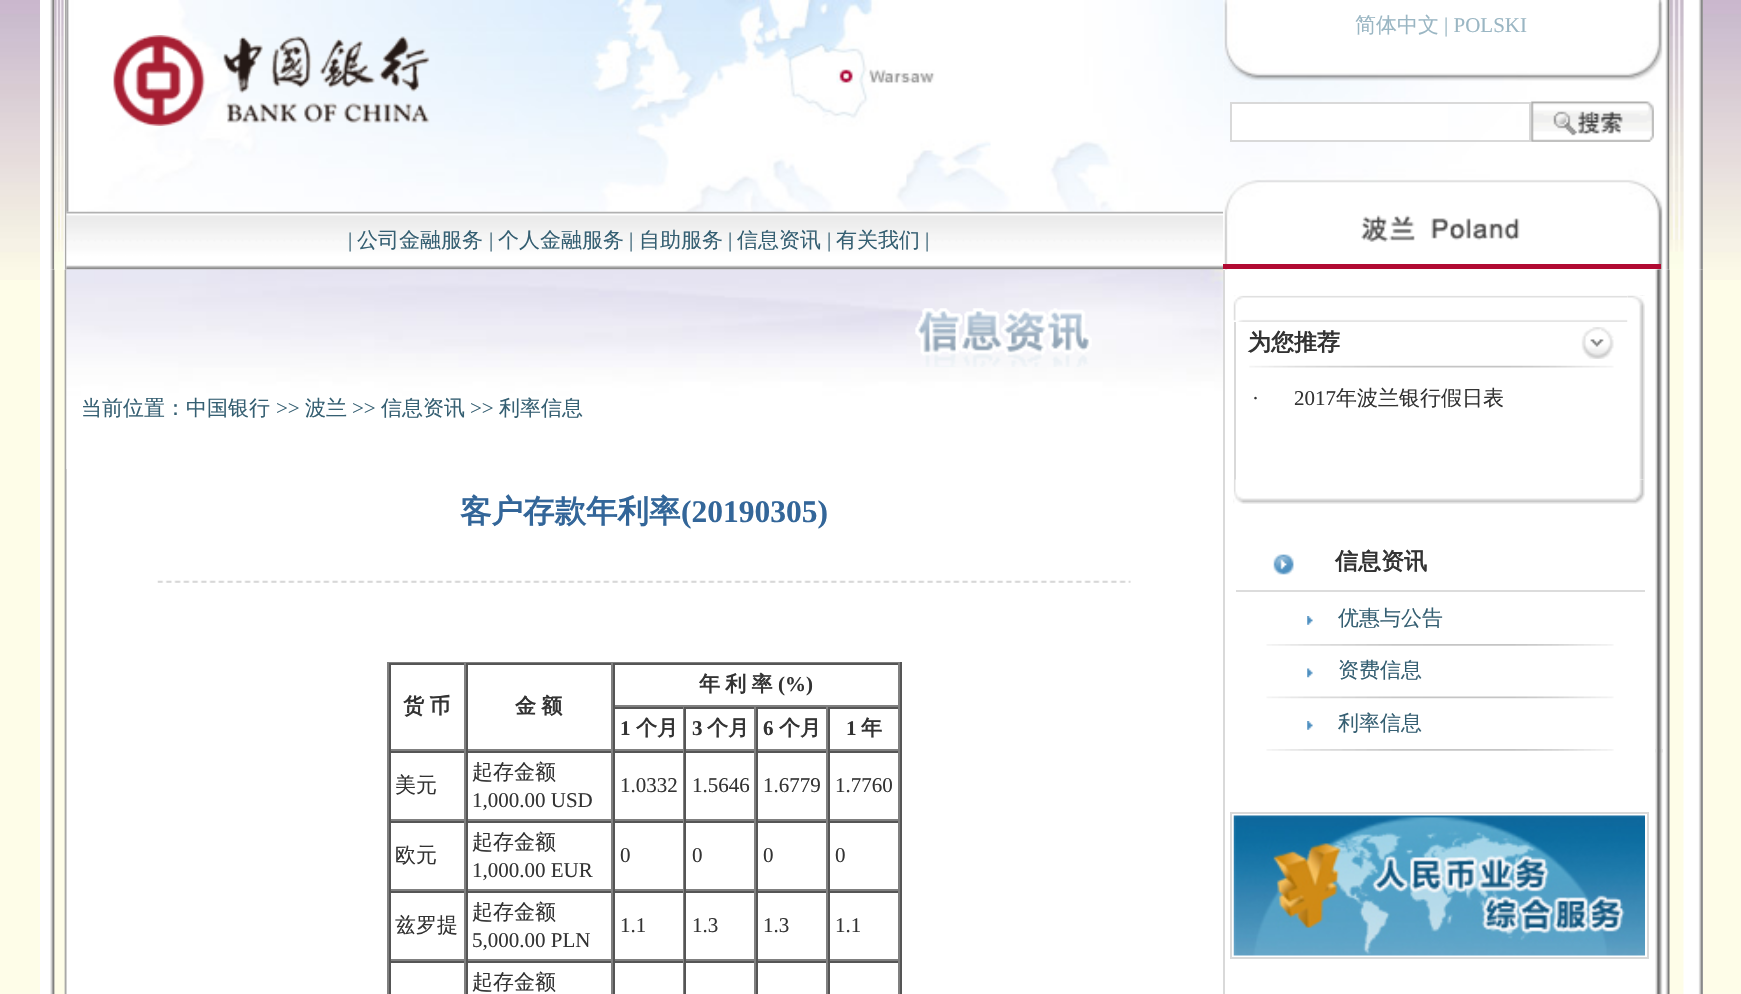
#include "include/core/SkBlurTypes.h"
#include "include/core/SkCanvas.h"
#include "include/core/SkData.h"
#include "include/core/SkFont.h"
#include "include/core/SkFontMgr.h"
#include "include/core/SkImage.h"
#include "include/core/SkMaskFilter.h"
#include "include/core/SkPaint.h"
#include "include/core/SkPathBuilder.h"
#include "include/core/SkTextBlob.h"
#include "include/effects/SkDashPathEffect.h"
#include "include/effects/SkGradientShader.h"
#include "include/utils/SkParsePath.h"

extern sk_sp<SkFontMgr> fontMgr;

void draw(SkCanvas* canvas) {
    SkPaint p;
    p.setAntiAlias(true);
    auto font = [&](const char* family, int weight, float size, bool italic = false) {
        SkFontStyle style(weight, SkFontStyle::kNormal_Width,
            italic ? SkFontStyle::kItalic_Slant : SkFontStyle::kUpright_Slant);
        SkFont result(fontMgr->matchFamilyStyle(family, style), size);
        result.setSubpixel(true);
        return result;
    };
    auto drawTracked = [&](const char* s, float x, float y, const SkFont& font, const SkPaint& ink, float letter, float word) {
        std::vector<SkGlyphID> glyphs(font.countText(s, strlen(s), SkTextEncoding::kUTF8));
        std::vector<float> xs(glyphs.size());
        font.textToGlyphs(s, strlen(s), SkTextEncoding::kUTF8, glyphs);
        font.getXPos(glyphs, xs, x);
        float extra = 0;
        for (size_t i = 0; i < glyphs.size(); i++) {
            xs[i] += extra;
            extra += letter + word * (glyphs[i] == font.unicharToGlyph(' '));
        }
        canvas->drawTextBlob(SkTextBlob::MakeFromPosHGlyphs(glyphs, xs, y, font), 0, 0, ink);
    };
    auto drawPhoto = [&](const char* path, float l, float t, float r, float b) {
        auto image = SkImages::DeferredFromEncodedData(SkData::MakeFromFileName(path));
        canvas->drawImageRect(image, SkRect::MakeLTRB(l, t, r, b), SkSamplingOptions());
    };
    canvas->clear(0xFFFEFDE8);
    drawPhoto("media/1.png", 0, 0, 1741, 280);
    p.setColor(0xFFFFFFFF);
    canvas->drawRect(SkRect::MakeLTRB(40, 0, 1703, 994), p);
    drawPhoto("media/2.png", 50, 0, 67, 270);
    drawPhoto("media/9.png", 66, 0, 1224, 212);
    drawPhoto("media/11.png", 66, 211, 1224, 270);
    drawPhoto("media/12.png", 50, 269, 67, 994);
    drawPhoto("media/3.png", 54, 0, 65, 270);
    drawPhoto("media/4.png", 1223, 0, 1663, 270);
    auto font1 = font("WenQuanYi Zen Hei", 500, 21);
    p.setColor(0xFF9AB6C3);
    canvas->drawString("简体中文", 1355, 32, font1, p);
    auto font2 = font("Liberation Serif", 400, 21);
    canvas->drawString("| POLSKI", 1444, 32, font2, p);
    p.setColor(0xFFFFFFFF);
    canvas->drawRect(SkRect::MakeLTRB(1232, 104, 1448, 140), p);
    p.setStyle(SkPaint::kStroke_Style);
    p.setStrokeWidth(2);
    p.setColor(0xFFD9D9D9);
    canvas->drawRect(SkRect::MakeLTRB(1231, 103, 1530, 141), p);
    drawPhoto("media/5.png", 1531, 101, 1654, 142);
    drawPhoto("media/6.png", 1361, 215, 1520, 242);
    p.setStyle(SkPaint::kFill_Style);
    p.setColor(0xFFB10A32);
    canvas->drawRect(SkRect::MakeLTRB(1223, 264, 1661, 269), p);
    drawPhoto("media/7.png", 1662, 0, 1703, 270);
    drawPhoto("media/29.png", 1655, 269, 1663, 994);
    drawPhoto("media/31.png", 1662, 269, 1703, 994);
    drawPhoto("media/8.png", 1669, 0, 1684, 270);
    drawPhoto("media/10.png", 113, 35, 430, 126);
    p.setColor(0xFF355F72);
    canvas->drawString("|", 348, 247, font2, p);
    canvas->drawString("公司金融服务", 357, 247, font1, p);
    canvas->drawString("|", 489, 247, font2, p);
    canvas->drawString("个人金融服务", 498, 247, font1, p);
    canvas->drawString("|", 629, 247, font2, p);
    canvas->drawString("自助服务", 639, 247, font1, p);
    canvas->drawString("|", 728, 247, font2, p);
    canvas->drawString("信息资讯", 737, 247, font1, p);
    canvas->drawString("|", 827, 247, font2, p);
    canvas->drawString("有关我们", 836, 247, font1, p);
    canvas->drawString("|", 925, 247, font2, p);
    drawPhoto("media/13.png", 66, 269, 1224, 469);
    drawPhoto("media/14.png", 915, 308, 1092, 367);
    canvas->drawString("当前位置：中国银行", 81, 415, font1, p);
    canvas->drawString(">>", 276, 415, font2, p);
    canvas->drawString("波兰", 305, 415, font1, p);
    canvas->drawString(">>", 352, 415, font2, p);
    canvas->drawString("信息资讯", 381, 415, font1, p);
    canvas->drawString(">>", 470, 415, font2, p);
    canvas->drawString("利率信息", 499, 415, font1, p);
    auto font3 = font("WenQuanYi Zen Hei", 700, 31.5f);
    p.setColor(0xFF336699);
    canvas->drawString("客户存款年利率", 460, 522, font3, p);
    auto font4 = font("Liberation Serif", 700, 31.5f);
    canvas->drawString("(20190305)", 681, 522, font4, p);
    drawPhoto("media/15.png", 157, 580, 1131, 583);
    {
        const struct { float l, t, r, b; SkColor color; } items[] = {
            {387, 662, 901, 663, 0xFF808080},
            {900, 662, 902, 994, 0xFF555555},
            {387, 662, 389, 994, 0xFF808080},
            {389, 663, 900, 665, 0xFF555555},
            {898, 663, 900, 707, 0xFF808080},
            {613, 705, 900, 707, 0xFF808080},
            {613, 663, 615, 707, 0xFF555555},
        };
        for (auto [l, t, r, b, color] : items) {
            p.setColor(color);
            canvas->drawRect(SkRect::MakeLTRB(l, t, r, b), p);
        }
    }
    auto font5 = font("WenQuanYi Zen Hei", 700, 21);
    p.setColor(0xFF333333);
    drawTracked("年 利 率", 699, 691, font5, p, 0, -1);
    auto font6 = font("Liberation Serif", 700, 21);
    canvas->drawString("(%)", 778, 691, font6, p);
    {
        const struct { float l, t, r, b; SkColor color; } items[] = {
            {464, 663, 466, 751, 0xFF808080},
            {389, 749, 466, 751, 0xFF808080},
            {389, 663, 391, 751, 0xFF555555},
        };
        for (auto [l, t, r, b, color] : items) {
            p.setColor(color);
            canvas->drawRect(SkRect::MakeLTRB(l, t, r, b), p);
        }
    }
    p.setColor(0xFF333333);
    drawTracked("货 币", 403, 713, font5, p, 0, -1);
    {
        const struct { float l, t, r, b; SkColor color; } items[] = {
            {611, 663, 613, 751, 0xFF808080},
            {466, 749, 613, 751, 0xFF808080},
            {466, 663, 468, 751, 0xFF555555},
        };
        for (auto [l, t, r, b, color] : items) {
            p.setColor(color);
            canvas->drawRect(SkRect::MakeLTRB(l, t, r, b), p);
        }
    }
    p.setColor(0xFF333333);
    drawTracked("金 额", 515, 713, font5, p, 0, -1);
    {
        const struct { float l, t, r, b; SkColor color; } items[] = {
            {613, 707, 900, 709, 0xFF555555},
            {683, 707, 684, 751, 0xFF808080},
            {613, 749, 684, 751, 0xFF808080},
            {613, 707, 615, 751, 0xFF555555},
        };
        for (auto [l, t, r, b, color] : items) {
            p.setColor(color);
            canvas->drawRect(SkRect::MakeLTRB(l, t, r, b), p);
        }
    }
    p.setColor(0xFF333333);
    canvas->drawString("1", 620, 735, font6, p);
    canvas->drawString("个月", 636, 735, font5, p);
    {
        const struct { float l, t, r, b; SkColor color; } items[] = {
            {754, 707, 756, 751, 0xFF808080},
            {684, 749, 756, 751, 0xFF808080},
            {684, 707, 686, 751, 0xFF555555},
        };
        for (auto [l, t, r, b, color] : items) {
            p.setColor(color);
            canvas->drawRect(SkRect::MakeLTRB(l, t, r, b), p);
        }
    }
    p.setColor(0xFF333333);
    canvas->drawString("3", 692, 735, font6, p);
    canvas->drawString("个月", 707, 735, font5, p);
    {
        const struct { float l, t, r, b; SkColor color; } items[] = {
            {826, 707, 828, 751, 0xFF808080},
            {756, 749, 828, 751, 0xFF808080},
            {756, 707, 758, 751, 0xFF555555},
        };
        for (auto [l, t, r, b, color] : items) {
            p.setColor(color);
            canvas->drawRect(SkRect::MakeLTRB(l, t, r, b), p);
        }
    }
    p.setColor(0xFF333333);
    canvas->drawString("6", 763, 735, font6, p);
    canvas->drawString("个月", 779, 735, font5, p);
    {
        const struct { float l, t, r, b; SkColor color; } items[] = {
            {898, 707, 900, 751, 0xFF808080},
            {828, 749, 900, 751, 0xFF808080},
            {828, 707, 830, 751, 0xFF555555},
        };
        for (auto [l, t, r, b, color] : items) {
            p.setColor(color);
            canvas->drawRect(SkRect::MakeLTRB(l, t, r, b), p);
        }
    }
    p.setColor(0xFF333333);
    canvas->drawString("1", 846, 735, font6, p);
    canvas->drawString("年", 861, 735, font5, p);
    {
        const struct { float l, t, r, b; SkColor color; } items[] = {
            {389, 751, 900, 753, 0xFF555555},
            {464, 751, 466, 821, 0xFF808080},
            {389, 819, 466, 821, 0xFF808080},
            {389, 751, 391, 821, 0xFF555555},
        };
        for (auto [l, t, r, b, color] : items) {
            p.setColor(color);
            canvas->drawRect(SkRect::MakeLTRB(l, t, r, b), p);
        }
    }
    p.setColor(0xFF333333);
    canvas->drawString("美元", 395, 792, font1, p);
    {
        const struct { float l, t, r, b; SkColor color; } items[] = {
            {611, 751, 613, 821, 0xFF808080},
            {466, 819, 613, 821, 0xFF808080},
            {466, 751, 468, 821, 0xFF555555},
        };
        for (auto [l, t, r, b, color] : items) {
            p.setColor(color);
            canvas->drawRect(SkRect::MakeLTRB(l, t, r, b), p);
        }
    }
    p.setColor(0xFF333333);
    canvas->drawString("起存金额", 472, 779, font1, p);
    canvas->drawString("1,000.00 USD", 472, 807, font2, p);
    {
        const struct { float l, t, r, b; SkColor color; } items[] = {
            {683, 751, 684, 821, 0xFF808080},
            {613, 819, 684, 821, 0xFF808080},
            {613, 751, 615, 821, 0xFF555555},
        };
        for (auto [l, t, r, b, color] : items) {
            p.setColor(color);
            canvas->drawRect(SkRect::MakeLTRB(l, t, r, b), p);
        }
    }
    p.setColor(0xFF333333);
    canvas->drawString("1.0332", 620, 792, font2, p);
    {
        const struct { float l, t, r, b; SkColor color; } items[] = {
            {754, 751, 756, 821, 0xFF808080},
            {684, 819, 756, 821, 0xFF808080},
            {684, 751, 686, 821, 0xFF555555},
        };
        for (auto [l, t, r, b, color] : items) {
            p.setColor(color);
            canvas->drawRect(SkRect::MakeLTRB(l, t, r, b), p);
        }
    }
    p.setColor(0xFF333333);
    canvas->drawString("1.5646", 692, 792, font2, p);
    {
        const struct { float l, t, r, b; SkColor color; } items[] = {
            {826, 751, 828, 821, 0xFF808080},
            {756, 819, 828, 821, 0xFF808080},
            {756, 751, 758, 821, 0xFF555555},
        };
        for (auto [l, t, r, b, color] : items) {
            p.setColor(color);
            canvas->drawRect(SkRect::MakeLTRB(l, t, r, b), p);
        }
    }
    p.setColor(0xFF333333);
    canvas->drawString("1.6779", 763, 792, font2, p);
    {
        const struct { float l, t, r, b; SkColor color; } items[] = {
            {898, 751, 900, 821, 0xFF808080},
            {828, 819, 900, 821, 0xFF808080},
            {828, 751, 830, 821, 0xFF555555},
        };
        for (auto [l, t, r, b, color] : items) {
            p.setColor(color);
            canvas->drawRect(SkRect::MakeLTRB(l, t, r, b), p);
        }
    }
    p.setColor(0xFF333333);
    canvas->drawString("1.7760", 835, 792, font2, p);
    {
        const struct { float l, t, r, b; SkColor color; } items[] = {
            {389, 821, 900, 823, 0xFF555555},
            {464, 821, 466, 891, 0xFF808080},
            {389, 889, 466, 891, 0xFF808080},
            {389, 821, 391, 891, 0xFF555555},
        };
        for (auto [l, t, r, b, color] : items) {
            p.setColor(color);
            canvas->drawRect(SkRect::MakeLTRB(l, t, r, b), p);
        }
    }
    p.setColor(0xFF333333);
    canvas->drawString("欧元", 395, 862, font1, p);
    {
        const struct { float l, t, r, b; SkColor color; } items[] = {
            {611, 821, 613, 891, 0xFF808080},
            {466, 889, 613, 891, 0xFF808080},
            {466, 821, 468, 891, 0xFF555555},
        };
        for (auto [l, t, r, b, color] : items) {
            p.setColor(color);
            canvas->drawRect(SkRect::MakeLTRB(l, t, r, b), p);
        }
    }
    p.setColor(0xFF333333);
    canvas->drawString("起存金额", 472, 849, font1, p);
    canvas->drawString("1,000.00 EUR", 472, 877, font2, p);
    {
        const struct { float l, t, r, b; SkColor color; } items[] = {
            {683, 821, 684, 891, 0xFF808080},
            {613, 889, 684, 891, 0xFF808080},
            {613, 821, 615, 891, 0xFF555555},
        };
        for (auto [l, t, r, b, color] : items) {
            p.setColor(color);
            canvas->drawRect(SkRect::MakeLTRB(l, t, r, b), p);
        }
    }
    p.setColor(0xFF333333);
    canvas->drawString("0", 620, 862, font2, p);
    {
        const struct { float l, t, r, b; SkColor color; } items[] = {
            {754, 821, 756, 891, 0xFF808080},
            {684, 889, 756, 891, 0xFF808080},
            {684, 821, 686, 891, 0xFF555555},
        };
        for (auto [l, t, r, b, color] : items) {
            p.setColor(color);
            canvas->drawRect(SkRect::MakeLTRB(l, t, r, b), p);
        }
    }
    p.setColor(0xFF333333);
    canvas->drawString("0", 692, 862, font2, p);
    {
        const struct { float l, t, r, b; SkColor color; } items[] = {
            {826, 821, 828, 891, 0xFF808080},
            {756, 889, 828, 891, 0xFF808080},
            {756, 821, 758, 891, 0xFF555555},
        };
        for (auto [l, t, r, b, color] : items) {
            p.setColor(color);
            canvas->drawRect(SkRect::MakeLTRB(l, t, r, b), p);
        }
    }
    p.setColor(0xFF333333);
    canvas->drawString("0", 763, 862, font2, p);
    {
        const struct { float l, t, r, b; SkColor color; } items[] = {
            {898, 821, 900, 891, 0xFF808080},
            {828, 889, 900, 891, 0xFF808080},
            {828, 821, 830, 891, 0xFF555555},
        };
        for (auto [l, t, r, b, color] : items) {
            p.setColor(color);
            canvas->drawRect(SkRect::MakeLTRB(l, t, r, b), p);
        }
    }
    p.setColor(0xFF333333);
    canvas->drawString("0", 835, 862, font2, p);
    {
        const struct { float l, t, r, b; SkColor color; } items[] = {
            {389, 891, 900, 893, 0xFF555555},
            {464, 891, 466, 961, 0xFF808080},
            {389, 959, 466, 961, 0xFF808080},
            {389, 891, 391, 961, 0xFF555555},
        };
        for (auto [l, t, r, b, color] : items) {
            p.setColor(color);
            canvas->drawRect(SkRect::MakeLTRB(l, t, r, b), p);
        }
    }
    p.setColor(0xFF333333);
    canvas->drawString("兹罗提", 395, 932, font1, p);
    {
        const struct { float l, t, r, b; SkColor color; } items[] = {
            {611, 891, 613, 961, 0xFF808080},
            {466, 959, 613, 961, 0xFF808080},
            {466, 891, 468, 961, 0xFF555555},
        };
        for (auto [l, t, r, b, color] : items) {
            p.setColor(color);
            canvas->drawRect(SkRect::MakeLTRB(l, t, r, b), p);
        }
    }
    p.setColor(0xFF333333);
    canvas->drawString("起存金额", 472, 919, font1, p);
    canvas->drawString("5,000.00 PLN", 472, 947, font2, p);
    {
        const struct { float l, t, r, b; SkColor color; } items[] = {
            {683, 891, 684, 961, 0xFF808080},
            {613, 959, 684, 961, 0xFF808080},
            {613, 891, 615, 961, 0xFF555555},
        };
        for (auto [l, t, r, b, color] : items) {
            p.setColor(color);
            canvas->drawRect(SkRect::MakeLTRB(l, t, r, b), p);
        }
    }
    p.setColor(0xFF333333);
    canvas->drawString("1.1", 620, 932, font2, p);
    {
        const struct { float l, t, r, b; SkColor color; } items[] = {
            {754, 891, 756, 961, 0xFF808080},
            {684, 959, 756, 961, 0xFF808080},
            {684, 891, 686, 961, 0xFF555555},
        };
        for (auto [l, t, r, b, color] : items) {
            p.setColor(color);
            canvas->drawRect(SkRect::MakeLTRB(l, t, r, b), p);
        }
    }
    p.setColor(0xFF333333);
    canvas->drawString("1.3", 692, 932, font2, p);
    {
        const struct { float l, t, r, b; SkColor color; } items[] = {
            {826, 891, 828, 961, 0xFF808080},
            {756, 959, 828, 961, 0xFF808080},
            {756, 891, 758, 961, 0xFF555555},
        };
        for (auto [l, t, r, b, color] : items) {
            p.setColor(color);
            canvas->drawRect(SkRect::MakeLTRB(l, t, r, b), p);
        }
    }
    p.setColor(0xFF333333);
    canvas->drawString("1.3", 763, 932, font2, p);
    {
        const struct { float l, t, r, b; SkColor color; } items[] = {
            {898, 891, 900, 961, 0xFF808080},
            {828, 959, 900, 961, 0xFF808080},
            {828, 891, 830, 961, 0xFF555555},
        };
        for (auto [l, t, r, b, color] : items) {
            p.setColor(color);
            canvas->drawRect(SkRect::MakeLTRB(l, t, r, b), p);
        }
    }
    p.setColor(0xFF333333);
    canvas->drawString("1.1", 835, 932, font2, p);
    {
        const struct { float l, t, r, b; SkColor color; } items[] = {
            {389, 961, 900, 963, 0xFF555555},
            {464, 961, 466, 994, 0xFF808080},
            {389, 961, 391, 994, 0xFF555555},
            {611, 961, 613, 994, 0xFF808080},
            {466, 961, 468, 994, 0xFF555555},
        };
        for (auto [l, t, r, b, color] : items) {
            p.setColor(color);
            canvas->drawRect(SkRect::MakeLTRB(l, t, r, b), p);
        }
    }
    p.setColor(0xFF333333);
    canvas->drawString("起存金额", 472, 989, font1, p);
    {
        const struct { float l, t, r, b; SkColor color; } items[] = {
            {683, 961, 684, 994, 0xFF808080},
            {613, 961, 615, 994, 0xFF555555},
            {754, 961, 756, 994, 0xFF808080},
            {684, 961, 686, 994, 0xFF555555},
            {826, 961, 828, 994, 0xFF808080},
            {756, 961, 758, 994, 0xFF555555},
            {898, 961, 900, 994, 0xFF808080},
            {828, 961, 830, 994, 0xFF555555},
            {1223, 270, 1225, 994, 0xFFD9D9D9},
        };
        for (auto [l, t, r, b, color] : items) {
            p.setColor(color);
            canvas->drawRect(SkRect::MakeLTRB(l, t, r, b), p);
        }
    }
    drawPhoto("media/16.png", 1233, 295, 1628, 322);
    drawPhoto("media/17.png", 1627, 295, 1645, 480);
    drawPhoto("media/18.png", 1627, 295, 1645, 306);
    canvas->drawRect(SkRect::MakeLTRB(1234, 322, 1236, 480), p);
    auto font7 = font("WenQuanYi Zen Hei", 700, 23);
    p.setColor(0xFF333333);
    canvas->drawString("为您推荐", 1248, 350, font7, p);
    drawPhoto("media/19.png", 1581, 327, 1614, 359);
    drawPhoto("media/20.png", 1249, 365, 1614, 368);
    canvas->drawString("·", 1252, 405, font2, p);
    canvas->drawString("2017", 1294, 405, font2, p);
    canvas->drawString("年波兰银行假日表", 1336, 405, font1, p);
    drawPhoto("media/21.png", 1233, 479, 1645, 504);
    drawPhoto("media/22.png", 1633, 479, 1645, 504);
    p.setColor(0xFFDCDCDC);
    canvas->drawRect(SkRect::MakeLTRB(1236, 590, 1645, 592), p);
    drawPhoto("media/23.png", 1273, 554, 1294, 575);
    p.setColor(0xFF333333);
    canvas->drawString("信息资讯", 1335, 569, font7, p);
    drawPhoto("media/24.png", 1307, 616, 1313, 625);
    p.setColor(0xFF355F72);
    canvas->drawString("优惠与公告", 1338, 625, font1, p);
    drawPhoto("media/25.png", 1266, 644, 1614, 646);
    drawPhoto("media/26.png", 1307, 668, 1313, 678);
    canvas->drawString("资费信息", 1338, 677, font1, p);
    drawPhoto("media/27.png", 1266, 696, 1614, 699);
    drawPhoto("media/24.png", 1307, 721, 1313, 730);
    canvas->drawString("利率信息", 1338, 730, font1, p);
    drawPhoto("media/25.png", 1266, 749, 1614, 751);
    p.setStyle(SkPaint::kStroke_Style);
    p.setColor(0xFFD9D9D9);
    canvas->drawRect(SkRect::MakeLTRB(1231, 813, 1648, 958), p);
    drawPhoto("media/28.png", 1233, 815, 1645, 956);
    drawPhoto("media/30.png", 1655, 749, 1663, 753);
}
